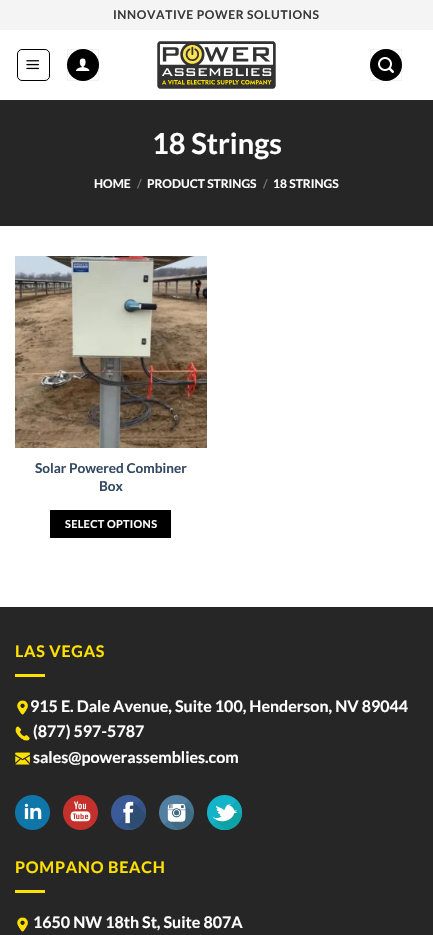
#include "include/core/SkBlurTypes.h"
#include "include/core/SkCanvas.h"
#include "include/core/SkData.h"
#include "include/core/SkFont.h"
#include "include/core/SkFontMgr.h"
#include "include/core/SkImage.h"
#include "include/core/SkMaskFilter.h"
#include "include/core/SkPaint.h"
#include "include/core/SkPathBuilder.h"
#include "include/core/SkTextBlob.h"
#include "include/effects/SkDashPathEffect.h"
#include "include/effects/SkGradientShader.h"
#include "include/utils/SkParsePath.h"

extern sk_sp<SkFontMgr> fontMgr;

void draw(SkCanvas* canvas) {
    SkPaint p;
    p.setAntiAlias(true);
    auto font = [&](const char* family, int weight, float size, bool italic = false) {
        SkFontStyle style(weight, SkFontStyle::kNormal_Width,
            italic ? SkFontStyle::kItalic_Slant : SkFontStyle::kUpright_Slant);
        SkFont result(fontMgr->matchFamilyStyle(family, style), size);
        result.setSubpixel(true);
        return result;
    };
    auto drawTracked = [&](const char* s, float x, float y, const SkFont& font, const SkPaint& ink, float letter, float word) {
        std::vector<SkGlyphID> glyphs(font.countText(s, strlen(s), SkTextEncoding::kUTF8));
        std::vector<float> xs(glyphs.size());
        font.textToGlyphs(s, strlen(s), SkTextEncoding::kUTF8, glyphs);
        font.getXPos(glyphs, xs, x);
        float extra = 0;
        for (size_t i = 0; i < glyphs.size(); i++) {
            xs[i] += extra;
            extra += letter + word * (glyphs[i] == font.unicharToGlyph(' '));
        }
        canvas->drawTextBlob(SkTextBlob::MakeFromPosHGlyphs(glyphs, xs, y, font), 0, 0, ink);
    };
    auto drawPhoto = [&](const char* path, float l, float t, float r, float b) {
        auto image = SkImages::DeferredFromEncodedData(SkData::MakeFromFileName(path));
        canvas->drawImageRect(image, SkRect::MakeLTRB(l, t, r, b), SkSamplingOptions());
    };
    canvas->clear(0xFFFFFFFF);
    p.setColor(0xFFF4F4F4);
    canvas->drawRect(SkRect::MakeLTRB(0, 0, 433, 30), p);
    auto font1 = font("Lato", 700, 12);
    p.setColor(0xFF3A3A3A);
    drawTracked("INNOVATIVE POWER SOLUTIONS", 113, 19, font1, p, 0.6f, 0);
    p.setStyle(SkPaint::kStroke_Style);
    p.setStrokeWidth(1);
    p.setColor(0xFF000000);
    canvas->drawRoundRect(SkRect::MakeLTRB(17.5f, 49.5f, 49.5f, 80.5f), 4.5f, 4.5f, p);
    drawPhoto("media/1.png", 26, 60, 39, 70);
    p.setStyle(SkPaint::kFill_Style);
    canvas->drawCircle(83, 65, 16, p);
    p.setStyle(SkPaint::kStroke_Style);
    p.setColor(0x0D000000);
    canvas->drawRect(SkRect::MakeLTRB(67.5f, 49.5f, 98.5f, 80.5f), p);
    drawPhoto("media/2.png", 76, 58, 90, 71);
    drawPhoto("media/3.png", 157, 41, 276, 89);
    p.setStyle(SkPaint::kFill_Style);
    p.setColor(0xFF000000);
    canvas->drawCircle(386, 65, 16, p);
    p.setStyle(SkPaint::kStroke_Style);
    p.setColor(0x0D000000);
    canvas->drawRect(SkRect::MakeLTRB(370.5f, 49.5f, 401.5f, 80.5f), p);
    drawPhoto("media/4.png", 378, 57, 394, 73);
    p.setStyle(SkPaint::kFill_Style);
    p.setColor(0xFF262626);
    canvas->drawRect(SkRect::MakeLTRB(0, 100, 433, 226), p);
    auto font2 = font("Lato", 700, 29);
    p.setColor(0xFFFFFFFF);
    canvas->drawString("18 Strings", 152, 154, font2, p);
    canvas->drawString("HOME", 94, 188, font1, p);
    p.setColor(0xFF727272);
    canvas->drawString("/", 137, 188, font1, p);
    p.setColor(0xFFFFFFFF);
    canvas->drawString("PRODUCT STRINGS", 147, 188, font1, p);
    p.setColor(0xFF727272);
    canvas->drawString("/", 263, 188, font1, p);
    p.setColor(0xFFFFFFFF);
    canvas->drawString("18 STRINGS", 273, 188, font1, p);
    drawPhoto("media/5.png", 15, 256, 207, 448);
    auto font3 = font("Lato", 700, 13.6f);
    p.setColor(0xFF334862);
    canvas->drawString("Solar Powered Combiner", 35, 473, font3, p);
    canvas->drawString("Box", 99, 491, font3, p);
    p.setColor(0xFF000000);
    canvas->drawRect(SkRect::MakeLTRB(50, 510, 171, 538), p);
    auto font4 = font("Lato", 700, 10.9f);
    p.setColor(0xFFFFFFFF);
    drawTracked("SELECT OPTIONS", 65, 528, font4, p, 0.3f, 0);
    p.setColor(0xFF262626);
    canvas->drawRect(SkRect::MakeLTRB(0, 608, 433, 935), p);
    p.setColor(0xFF242424);
    canvas->drawRect(SkRect::MakeLTRB(0, 607, 433, 608), p);
    auto font5 = font("Lato", 700, 16);
    p.setColor(0xFFFFE000);
    drawTracked("LAS VEGAS", 15, 657, font5, p, 0.75f, 0);
    canvas->drawRect(SkRect::MakeLTRB(15, 674, 45, 677), p);
    drawPhoto("media/6.png", 17, 700, 28, 715);
    p.setColor(0xFFFFFFFF);
    canvas->drawString("915 E. Dale Avenue, Suite 100, Henderson, NV 89044", 30, 712, font5, p);
    drawPhoto("media/7.png", 15, 726, 30, 741);
    canvas->drawString("(877) 597-5787", 33, 737, font5, p);
    drawPhoto("media/8.png", 15, 752, 30, 765);
    canvas->drawString("sales@powerassemblies.com", 33, 763, font5, p);
    drawPhoto("media/9.png", 15, 795, 50, 830);
    drawPhoto("media/10.png", 63, 795, 98, 830);
    drawPhoto("media/11.png", 111, 795, 146, 830);
    drawPhoto("media/12.png", 159, 795, 194, 830);
    drawPhoto("media/13.png", 207, 795, 242, 830);
    p.setColor(0xFFFFE000);
    drawTracked("POMPANO BEACH", 15, 873, font5, p, 0.75f, 0);
    canvas->drawRect(SkRect::MakeLTRB(15, 890, 45, 893), p);
    drawPhoto("media/6.png", 17, 917, 28, 932);
    p.setColor(0xFFFFFFFF);
    canvas->drawString("1650 NW 18th St, Suite 807A", 33, 928, font5, p);
}
